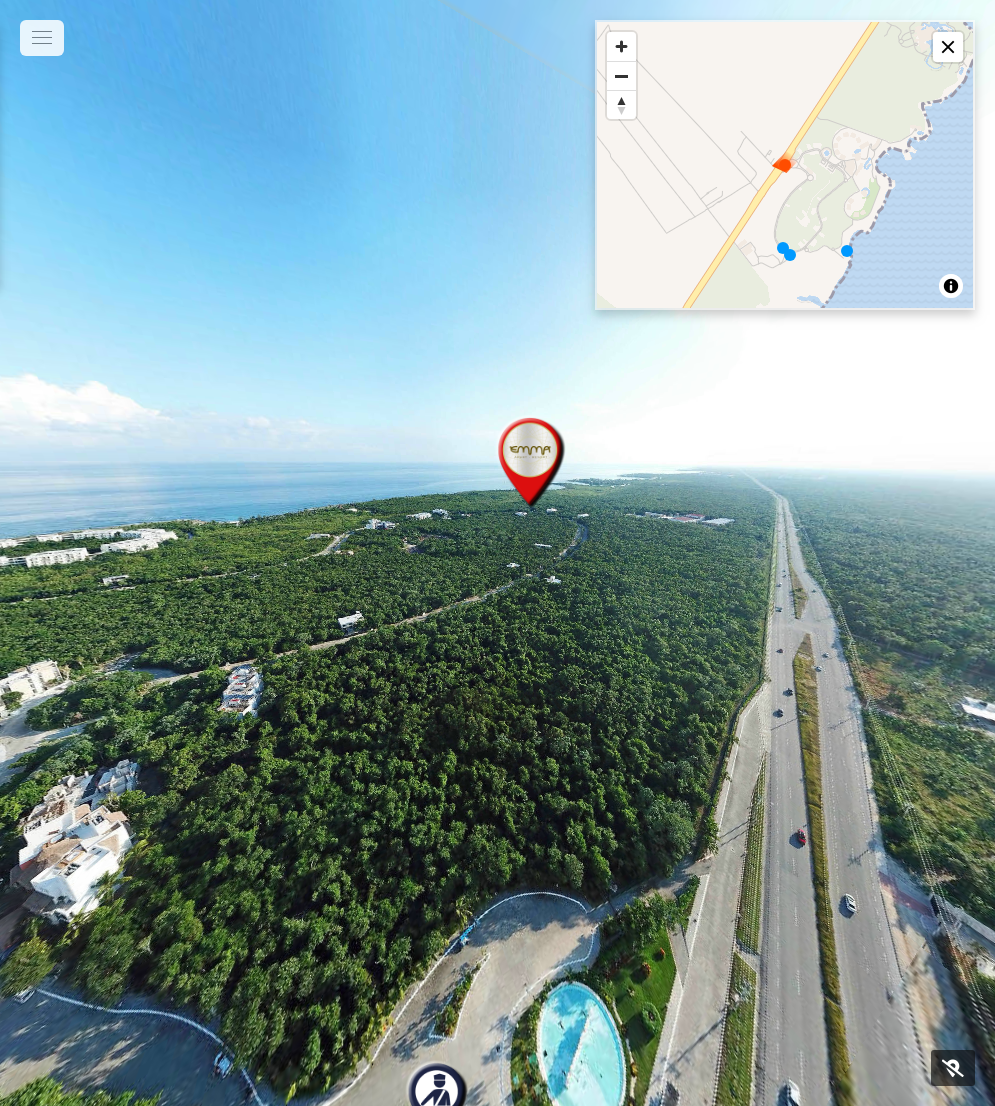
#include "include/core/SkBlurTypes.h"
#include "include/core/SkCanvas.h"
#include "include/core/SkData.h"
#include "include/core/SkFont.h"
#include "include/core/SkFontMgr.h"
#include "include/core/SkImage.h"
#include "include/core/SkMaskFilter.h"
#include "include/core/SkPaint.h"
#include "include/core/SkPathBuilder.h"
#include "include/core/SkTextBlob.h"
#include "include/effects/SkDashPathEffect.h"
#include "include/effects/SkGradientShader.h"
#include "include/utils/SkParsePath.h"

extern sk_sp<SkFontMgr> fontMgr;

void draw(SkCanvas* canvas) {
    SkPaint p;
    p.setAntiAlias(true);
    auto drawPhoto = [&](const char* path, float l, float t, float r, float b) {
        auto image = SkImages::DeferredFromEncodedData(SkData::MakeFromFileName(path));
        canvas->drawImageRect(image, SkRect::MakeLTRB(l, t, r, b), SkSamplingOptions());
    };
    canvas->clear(0xFFFFFFFF);
    drawPhoto("media/1.png", 0, 0, 995, 1106);
    drawPhoto("media/2.png", 495, 415, 566, 508);
    drawPhoto("media/3.png", 405, 1060, 468, 1106);
    p.setColor(0x2B000000);
    p.setMaskFilter(SkMaskFilter::MakeBlur(kNormal_SkBlurStyle, 5));
    canvas->drawRoundRect(SkRect::MakeLTRB(-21, 25, 0, 294), 6, 6, p);
    p.setMaskFilter(nullptr);
    p.setColor(0xD9FFFFFF);
    canvas->drawRoundRect(SkRect::MakeLTRB(20, 20, 64, 56), 6, 6, p);
    {
        const struct { float l, t, r, b; SkColor color; } items[] = {
            {32, 31, 52, 32, 0xFF717F89},
            {32, 37, 52, 38, 0xFF717F89},
            {32, 43, 52, 44, 0xFF718089},
        };
        for (auto [l, t, r, b, color] : items) {
            p.setColor(color);
            canvas->drawRect(SkRect::MakeLTRB(l, t, r, b), p);
        }
    }
    p.setColor(0x33000000);
    p.setMaskFilter(SkMaskFilter::MakeBlur(kNormal_SkBlurStyle, 5));
    canvas->drawRect(SkRect::MakeLTRB(595, 25, 975, 315), p);
    p.setMaskFilter(nullptr);
    p.setColor(0x99FFFFFF);
    canvas->drawRect(SkRect::MakeLTRB(595, 20, 975, 310), p);
    drawPhoto("media/4.png", 597, 22, 973, 308);
    p.setColor(0xFFFF4D00);
    canvas->drawCircle(785, 165, 6, p);
    {
        const SkColor colors[] = {0xFFFF4D00, 0x00FF4D00};
        const float stops[] = {0, 1};
        const SkPoint ends[] = {{779, 169}, {793, 155}};
        p.setShader(SkGradientShader::MakeLinear(ends, colors, stops, 2, SkTileMode::kClamp));
        p.setAlpha(255);
    }
    canvas->drawPath(SkPathBuilder().moveTo(772, 166).lineTo(786, 151.5f).lineTo(800.5f, 158.5f).lineTo(786.5f, 173).close().detach(), p);
    p.setShader(nullptr);
    p.setColor(0xFF0099FF);
    canvas->drawCircle(783, 248, 6, p);
    canvas->drawCircle(790, 255, 6, p);
    canvas->drawCircle(847, 251, 6, p);
    p.setStyle(SkPaint::kStroke_Style);
    p.setStrokeWidth(2);
    p.setColor(0x1A000000);
    canvas->drawRoundRect(SkRect::MakeLTRB(606, 31, 637, 120), 5, 5, p);
    p.setStyle(SkPaint::kFill_Style);
    p.setColor(0xFFFFFFFF);
    canvas->drawRoundRect(SkRect::MakeLTRB(607, 32, 636, 119), 4, 4, p);
    drawPhoto("media/5.png", 615, 40, 628, 53);
    {
        const struct { float l, t, r, b; SkColor color; } items[] = {
            {607, 61, 636, 62, 0xFFDDDDDD},
            {615, 75, 628, 78, 0xFF333333},
            {607, 90, 636, 91, 0xFFDDDDDD},
        };
        for (auto [l, t, r, b, color] : items) {
            p.setColor(color);
            canvas->drawRect(SkRect::MakeLTRB(l, t, r, b), p);
        }
    }
    drawPhoto("media/6.png", 617, 97, 626, 115);
    p.setColor(0xFFFFFFFF);
    canvas->drawCircle(951, 286, 12, p);
    p.setColor(0x80FFFFFF);
    canvas->drawCircle(951, 286, 12, p);
    drawPhoto("media/7.png", 943, 278, 959, 294);
    p.setStyle(SkPaint::kStroke_Style);
    p.setColor(0x1A000000);
    canvas->drawRoundRect(SkRect::MakeLTRB(932, 31, 964, 63), 5, 5, p);
    p.setStyle(SkPaint::kFill_Style);
    p.setColor(0xFFFFFFFF);
    canvas->drawRoundRect(SkRect::MakeLTRB(933, 32, 963, 62), 4, 4, p);
    drawPhoto("media/8.png", 941, 40, 955, 54);
    p.setColor(0xA80A0A0A);
    canvas->drawRoundRect(SkRect::MakeLTRB(931, 1050, 975, 1086), 3, 3, p);
    drawPhoto("media/9.png", 942, 1059, 964, 1077);
}
